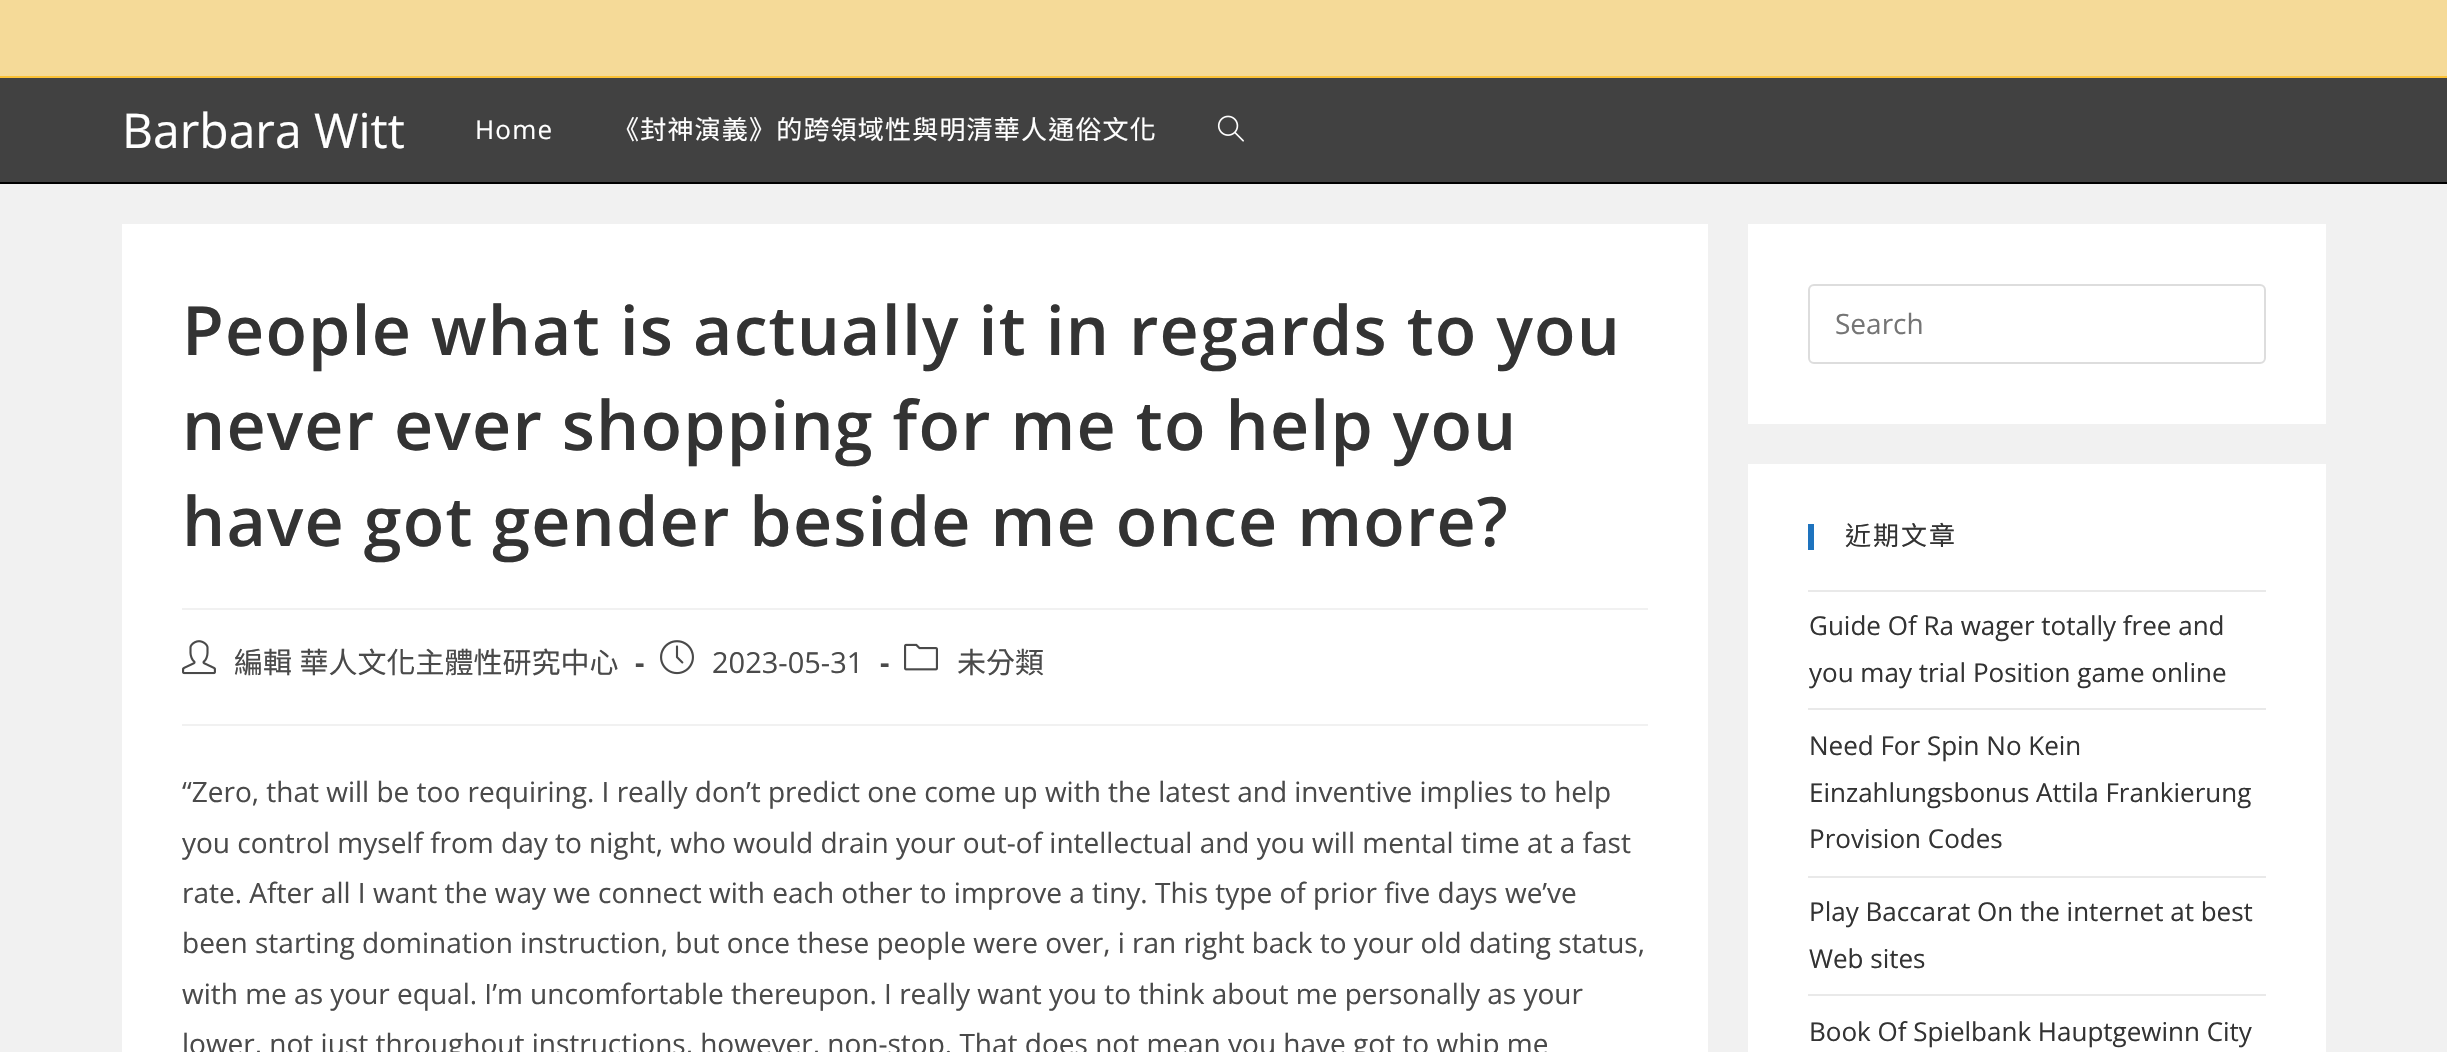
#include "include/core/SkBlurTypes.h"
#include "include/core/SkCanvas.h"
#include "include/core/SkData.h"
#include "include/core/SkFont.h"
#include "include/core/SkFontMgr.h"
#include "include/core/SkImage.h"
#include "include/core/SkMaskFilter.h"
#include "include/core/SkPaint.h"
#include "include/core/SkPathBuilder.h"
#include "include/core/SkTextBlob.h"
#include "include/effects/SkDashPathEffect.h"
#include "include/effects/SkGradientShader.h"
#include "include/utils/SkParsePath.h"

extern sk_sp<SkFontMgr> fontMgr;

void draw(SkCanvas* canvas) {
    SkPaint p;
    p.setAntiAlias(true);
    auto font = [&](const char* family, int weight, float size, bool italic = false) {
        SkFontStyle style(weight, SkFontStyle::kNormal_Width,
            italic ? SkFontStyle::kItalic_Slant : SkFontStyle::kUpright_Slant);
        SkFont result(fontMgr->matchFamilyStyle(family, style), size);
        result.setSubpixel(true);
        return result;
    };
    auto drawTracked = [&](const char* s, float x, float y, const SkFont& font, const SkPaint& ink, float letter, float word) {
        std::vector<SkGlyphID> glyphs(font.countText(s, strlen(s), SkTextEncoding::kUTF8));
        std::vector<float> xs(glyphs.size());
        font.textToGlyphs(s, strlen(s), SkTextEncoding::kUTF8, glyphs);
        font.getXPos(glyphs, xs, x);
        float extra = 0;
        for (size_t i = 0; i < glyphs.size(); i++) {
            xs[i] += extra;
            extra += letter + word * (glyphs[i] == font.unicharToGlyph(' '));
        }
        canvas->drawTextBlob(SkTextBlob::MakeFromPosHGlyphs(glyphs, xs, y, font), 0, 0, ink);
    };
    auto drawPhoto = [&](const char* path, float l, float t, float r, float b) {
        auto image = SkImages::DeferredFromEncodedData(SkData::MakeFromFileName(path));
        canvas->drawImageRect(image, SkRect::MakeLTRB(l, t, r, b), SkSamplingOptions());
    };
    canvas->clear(0xFFF1F1F1);
    {
        const struct { float l, t, r, b; SkColor color; } items[] = {
            {0, 0, 2447, 76, 0xFFF5DA98},
            {0, 76, 2447, 78, 0xFFFBC135},
            {0, 78, 2447, 182, 0xFF414141},
            {0, 182, 2447, 184, 0xFF000000},
        };
        for (auto [l, t, r, b, color] : items) {
            p.setColor(color);
            canvas->drawRect(SkRect::MakeLTRB(l, t, r, b), p);
        }
    }
    auto font1 = font("Open Sans", 400, 48);
    p.setColor(0xFFFFFFFF);
    canvas->drawString("Barbara Witt", 122, 148, font1, p);
    auto font2 = font("Open Sans", 400, 26);
    drawTracked("Home", 475, 139, font2, p, 1.2f, 0);
    auto font3 = font("Noto Sans CJK TC", 400, 26);
    drawTracked("《封神演義》的跨領域性與明清華人通俗文化", 613, 139, font3, p, 1.2f, 0);
    drawPhoto("media/1.png", 1217, 115, 1244, 142);
    canvas->drawRect(SkRect::MakeLTRB(122, 224, 1708, 1052), p);
    p.setColor(0xFFF1F1F1);
    canvas->drawRect(SkRect::MakeLTRB(182, 608, 1648, 610), p);
    auto font4 = font("Open Sans", 600, 68);
    p.setColor(0xFF333333);
    {
        const struct { const char* s; float x, y; } items[] = {
            {"People what is actually it in regards to you", 182, 355},
            {"never ever shopping for me to help you", 182, 450},
            {"have got gender beside me once more?", 182, 546},
        };
        for (auto [s, x, y] : items) {
            drawTracked(s, x, y, font4, p, 1.2f, 0);
        }
    }
    p.setColor(0xFFF1F1F1);
    canvas->drawRect(SkRect::MakeLTRB(182, 724, 1648, 726), p);
    drawPhoto("media/2.png", 182, 640, 216, 675);
    auto font5 = font("Noto Sans CJK TC", 400, 29);
    p.setColor(0xFF4A4A4A);
    drawTracked("編輯 華人文化主體性研究中心", 234, 673, font5, p, 0, 1);
    auto font6 = font("Open Sans", 700, 29);
    canvas->drawString("-", 635, 673, font6, p);
    drawPhoto("media/3.png", 660, 640, 694, 675);
    auto font7 = font("Open Sans", 400, 29);
    canvas->drawString("2023-05-31", 712, 673, font7, p);
    canvas->drawString("-", 880, 673, font6, p);
    drawPhoto("media/4.png", 904, 643, 938, 671);
    canvas->drawString("未分類", 957, 673, font5, p);
    auto font8 = font("Open Sans", 400, 28);
    {
        const struct { const char* s; float x, y; } items[] = {
            {"“Zero, that will be too requiring. I really don’t predict one come up with the latest and inventive implies to help", 182, 802},
            {"you control myself from day to night, who would drain your out-of intellectual and you will mental time at a fast", 182, 853},
            {"rate. After all I want the way we connect with each other to improve a tiny. This type of prior five days we’ve", 182, 903},
            {"been starting domination instruction, but once these people were over, i ran right back to your old dating status,", 182, 953},
            {"with me as your equal. I’m uncomfortable thereupon. I really want you to think about me personally as your", 182, 1004},
            {"lower, not just throughout instructions, however, non-stop. That does not mean you have got to whip me", 182, 1054},
        };
        for (auto [s, x, y] : items) {
            canvas->drawString(s, x, y, font8, p);
        }
    }
    p.setColor(0xFFFFFFFF);
    canvas->drawRect(SkRect::MakeLTRB(1748, 224, 2326, 424), p);
    p.setStyle(SkPaint::kStroke_Style);
    p.setStrokeWidth(2);
    p.setColor(0xFFDDDDDD);
    canvas->drawRoundRect(SkRect::MakeLTRB(1809, 285, 2265, 363), 5, 5, p);
    p.setStyle(SkPaint::kFill_Style);
    p.setColor(0xFF757575);
    canvas->drawString("Search", 1835, 334, font8, p);
    p.setColor(0xFFFFFFFF);
    canvas->drawRect(SkRect::MakeLTRB(1748, 464, 2326, 1052), p);
    p.setColor(0xFF1E73BE);
    canvas->drawRect(SkRect::MakeLTRB(1808, 524, 1814, 550), p);
    p.setColor(0xFF333333);
    drawTracked("近期文章", 1845, 545, font3, p, 2, 0);
    p.setColor(0xFFE9E9E9);
    canvas->drawRect(SkRect::MakeLTRB(1808, 590, 2266, 592), p);
    canvas->drawRect(SkRect::MakeLTRB(1808, 708, 2266, 710), p);
    p.setColor(0xFF333333);
    canvas->drawString("Guide Of Ra wager totally free and", 1809, 635, font2, p);
    canvas->drawString("you may trial Position game online", 1809, 682, font2, p);
    p.setColor(0xFFE9E9E9);
    canvas->drawRect(SkRect::MakeLTRB(1808, 876, 2266, 878), p);
    p.setColor(0xFF333333);
    {
        const struct { const char* s; float x, y; } items[] = {
            {"Need For Spin No Kein", 1809, 755},
            {"Einzahlungsbonus Attila Frankierung", 1809, 802},
            {"Provision Codes", 1809, 848},
        };
        for (auto [s, x, y] : items) {
            canvas->drawString(s, x, y, font2, p);
        }
    }
    p.setColor(0xFFE9E9E9);
    canvas->drawRect(SkRect::MakeLTRB(1808, 994, 2266, 996), p);
    p.setColor(0xFF333333);
    {
        const struct { const char* s; float x, y; } items[] = {
            {"Play Baccarat On the internet at best", 1809, 921},
            {"Web sites", 1809, 968},
            {"Book Of Spielbank Hauptgewinn City", 1809, 1041},
        };
        for (auto [s, x, y] : items) {
            canvas->drawString(s, x, y, font2, p);
        }
    }
}
